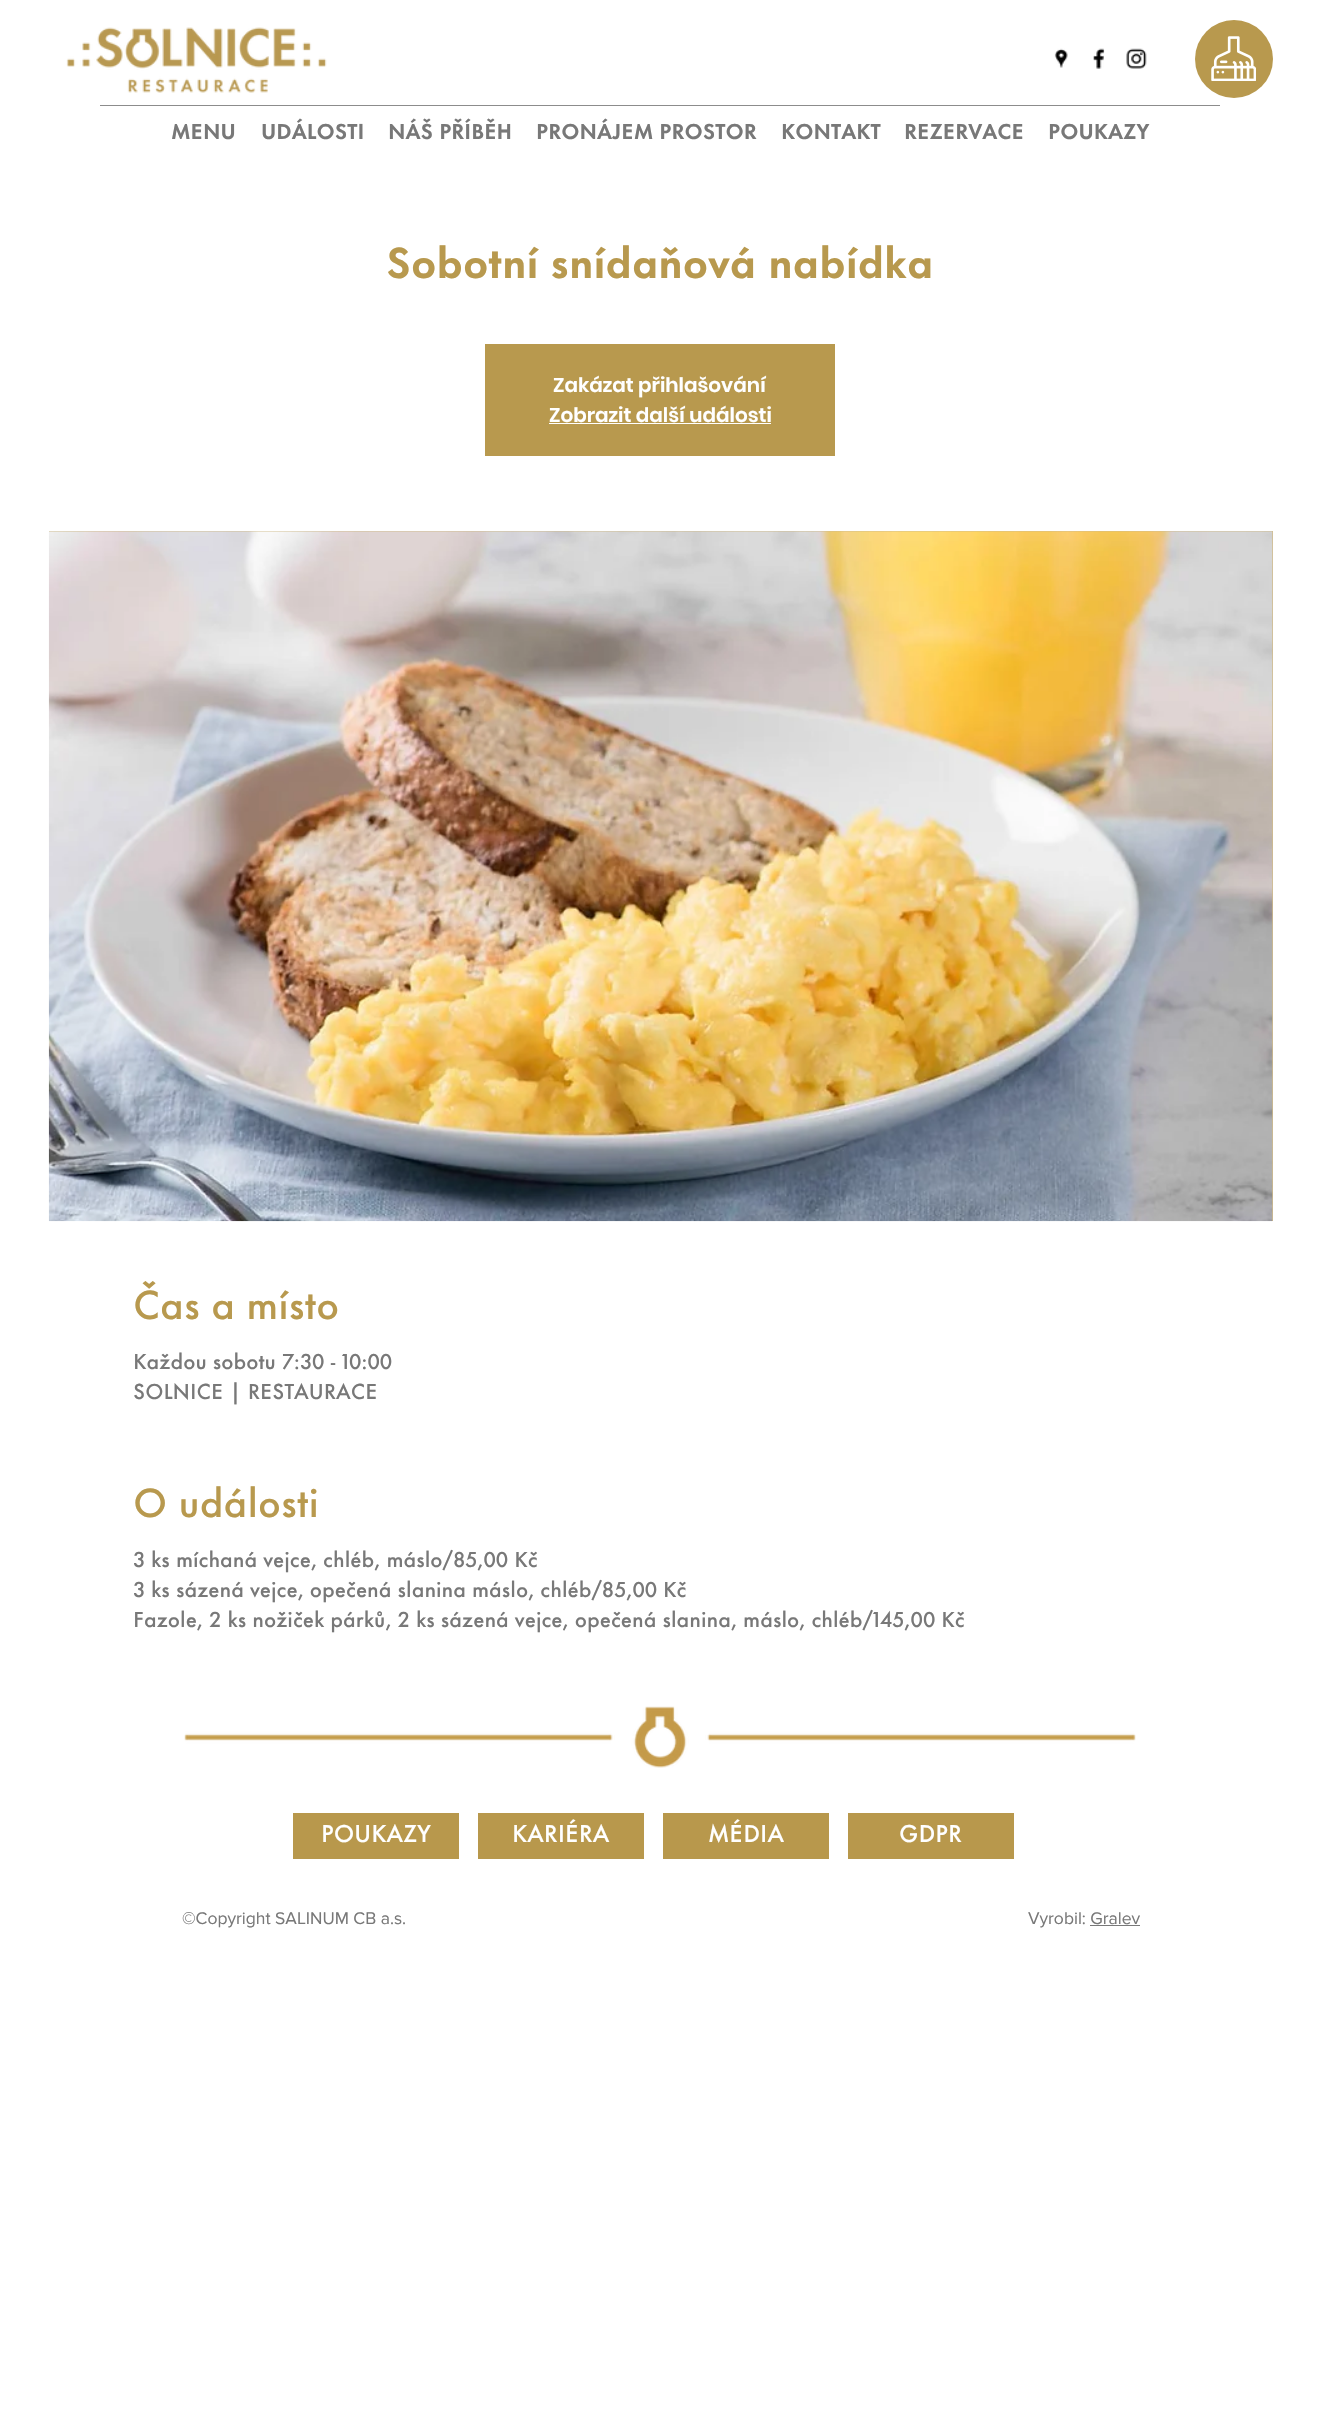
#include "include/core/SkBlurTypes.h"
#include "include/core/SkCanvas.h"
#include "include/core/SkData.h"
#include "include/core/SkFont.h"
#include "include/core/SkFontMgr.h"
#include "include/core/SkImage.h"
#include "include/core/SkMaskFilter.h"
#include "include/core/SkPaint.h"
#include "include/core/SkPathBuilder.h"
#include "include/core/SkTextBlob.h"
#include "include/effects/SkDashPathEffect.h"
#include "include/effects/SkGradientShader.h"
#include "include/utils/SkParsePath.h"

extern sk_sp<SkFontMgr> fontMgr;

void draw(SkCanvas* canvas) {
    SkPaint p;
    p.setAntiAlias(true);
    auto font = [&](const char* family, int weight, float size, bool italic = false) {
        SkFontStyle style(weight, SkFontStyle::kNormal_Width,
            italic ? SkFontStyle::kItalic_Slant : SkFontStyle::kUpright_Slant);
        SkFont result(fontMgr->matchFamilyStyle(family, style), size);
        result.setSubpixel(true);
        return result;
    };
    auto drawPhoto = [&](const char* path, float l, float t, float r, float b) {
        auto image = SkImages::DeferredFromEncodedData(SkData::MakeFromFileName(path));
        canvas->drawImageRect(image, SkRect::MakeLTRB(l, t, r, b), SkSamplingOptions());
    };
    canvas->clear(0xFFFFFFFF);
    drawPhoto("media/1.png", 66, 27, 327, 93);
    drawPhoto("media/2.png", 1054, 48, 1068, 68);
    drawPhoto("media/3.png", 1093, 48, 1105, 69);
    drawPhoto("media/4.png", 1126, 48, 1147, 69);
    p.setColor(0xFFB8994E);
    canvas->drawCircle(1234, 59, 39, p);
    drawPhoto("media/5.png", 1211, 36, 1256, 81);
    p.setColor(0xFF8C8C8C);
    canvas->drawRect(SkRect::MakeLTRB(100, 105, 1220, 106), p);
    auto font1 = font("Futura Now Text", 700, 20);
    p.setColor(0xFF787878);
    {
        const struct { const char* s; float x, y; } items[] = {
            {"MENU", 171, 139},
            {"UDÁLOSTI", 261, 139},
            {"NÁŠ PŘÍBĚH", 388, 139},
            {"PRONÁJEM PROSTOR", 536, 139},
            {"KONTAKT", 781, 139},
            {"REZERVACE", 904, 139},
            {"POUKAZY", 1048, 139},
        };
        for (auto [s, x, y] : items) {
            canvas->drawString(s, x, y, font1, p);
        }
    }
    auto font2 = font("Futura Now Text", 700, 40);
    p.setColor(0xFFB8994E);
    canvas->drawString("Sobotní snídaňová nabídka", 386, 278, font2, p);
    canvas->drawRect(SkRect::MakeLTRB(485, 344, 835, 456), p);
    auto font3 = font("Poppins", 600, 20);
    p.setColor(0xFFFFFFFF);
    canvas->drawString("Zakázat přihlašování", 553, 392, font3, p);
    canvas->drawString("Zobrazit další události", 549, 422, font3, p);
    canvas->drawRect(SkRect::MakeLTRB(549, 423, 771, 424), p);
    p.setColor(0xFFD0BB89);
    canvas->drawRect(SkRect::MakeLTRB(49, 531, 1273, 1221), p);
    drawPhoto("media/6.png", 48, 531, 1273, 1222);
    auto font4 = font("Futura Now Text", 500, 37.5f);
    p.setColor(0xFFB8994E);
    canvas->drawString("Čas a místo", 133, 1319, font4, p);
    auto font5 = font("Futura Now Text", 500, 20);
    p.setColor(0xFF787878);
    canvas->drawString("Každou sobotu 7:30 - 10:00", 133, 1369, font5, p);
    canvas->drawString("SOLNICE | RESTAURACE", 133, 1399, font5, p);
    p.setColor(0xFFB8994E);
    canvas->drawString("O události", 133, 1517, font4, p);
    p.setColor(0xFF787878);
    {
        const struct { const char* s; float x, y; } items[] = {
            {"3 ks míchaná vejce, chléb, máslo    /    85,00 Kč", 133, 1567},
            {"3 ks sázená vejce, opečená slanina máslo, chléb    /    85,00 Kč", 133, 1597},
            {"Fazole, 2 ks nožiček párků, 2 ks sázená vejce, opečená slanina, máslo, chléb    /    145,00 Kč", 133, 1627},
        };
        for (auto [s, x, y] : items) {
            canvas->drawString(s, x, y, font5, p);
        }
    }
    drawPhoto("media/7.png", 184, 1706, 1136, 1768);
    p.setColor(0xFFB8984C);
    canvas->drawRect(SkRect::MakeLTRB(293, 1813, 459, 1859), p);
    auto font6 = font("Futura Now Text", 500, 22.5f);
    p.setColor(0xFFFFFFFF);
    canvas->drawString("POUKAZY", 321, 1842, font6, p);
    p.setColor(0xFFB8984C);
    canvas->drawRect(SkRect::MakeLTRB(478, 1813, 644, 1859), p);
    p.setColor(0xFFFFFFFF);
    canvas->drawString("KARIÉRA", 512, 1842, font6, p);
    p.setColor(0xFFB8984C);
    canvas->drawRect(SkRect::MakeLTRB(663, 1813, 829, 1859), p);
    p.setColor(0xFFFFFFFF);
    canvas->drawString("MÉDIA", 708, 1842, font6, p);
    p.setColor(0xFFB8984C);
    canvas->drawRect(SkRect::MakeLTRB(848, 1813, 1014, 1859), p);
    p.setColor(0xFFFFFFFF);
    canvas->drawString("GDPR", 899, 1842, font6, p);
    auto font7 = font("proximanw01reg", 400, 17.5f);
    p.setColor(0xFF787878);
    canvas->drawString("©Copyright SALINUM CB a.s.", 182, 1924, font7, p);
    canvas->drawString("Vyrobil: Gralev", 1028, 1924, font7, p);
    canvas->drawRect(SkRect::MakeLTRB(1090, 1925, 1140, 1926), p);
}
